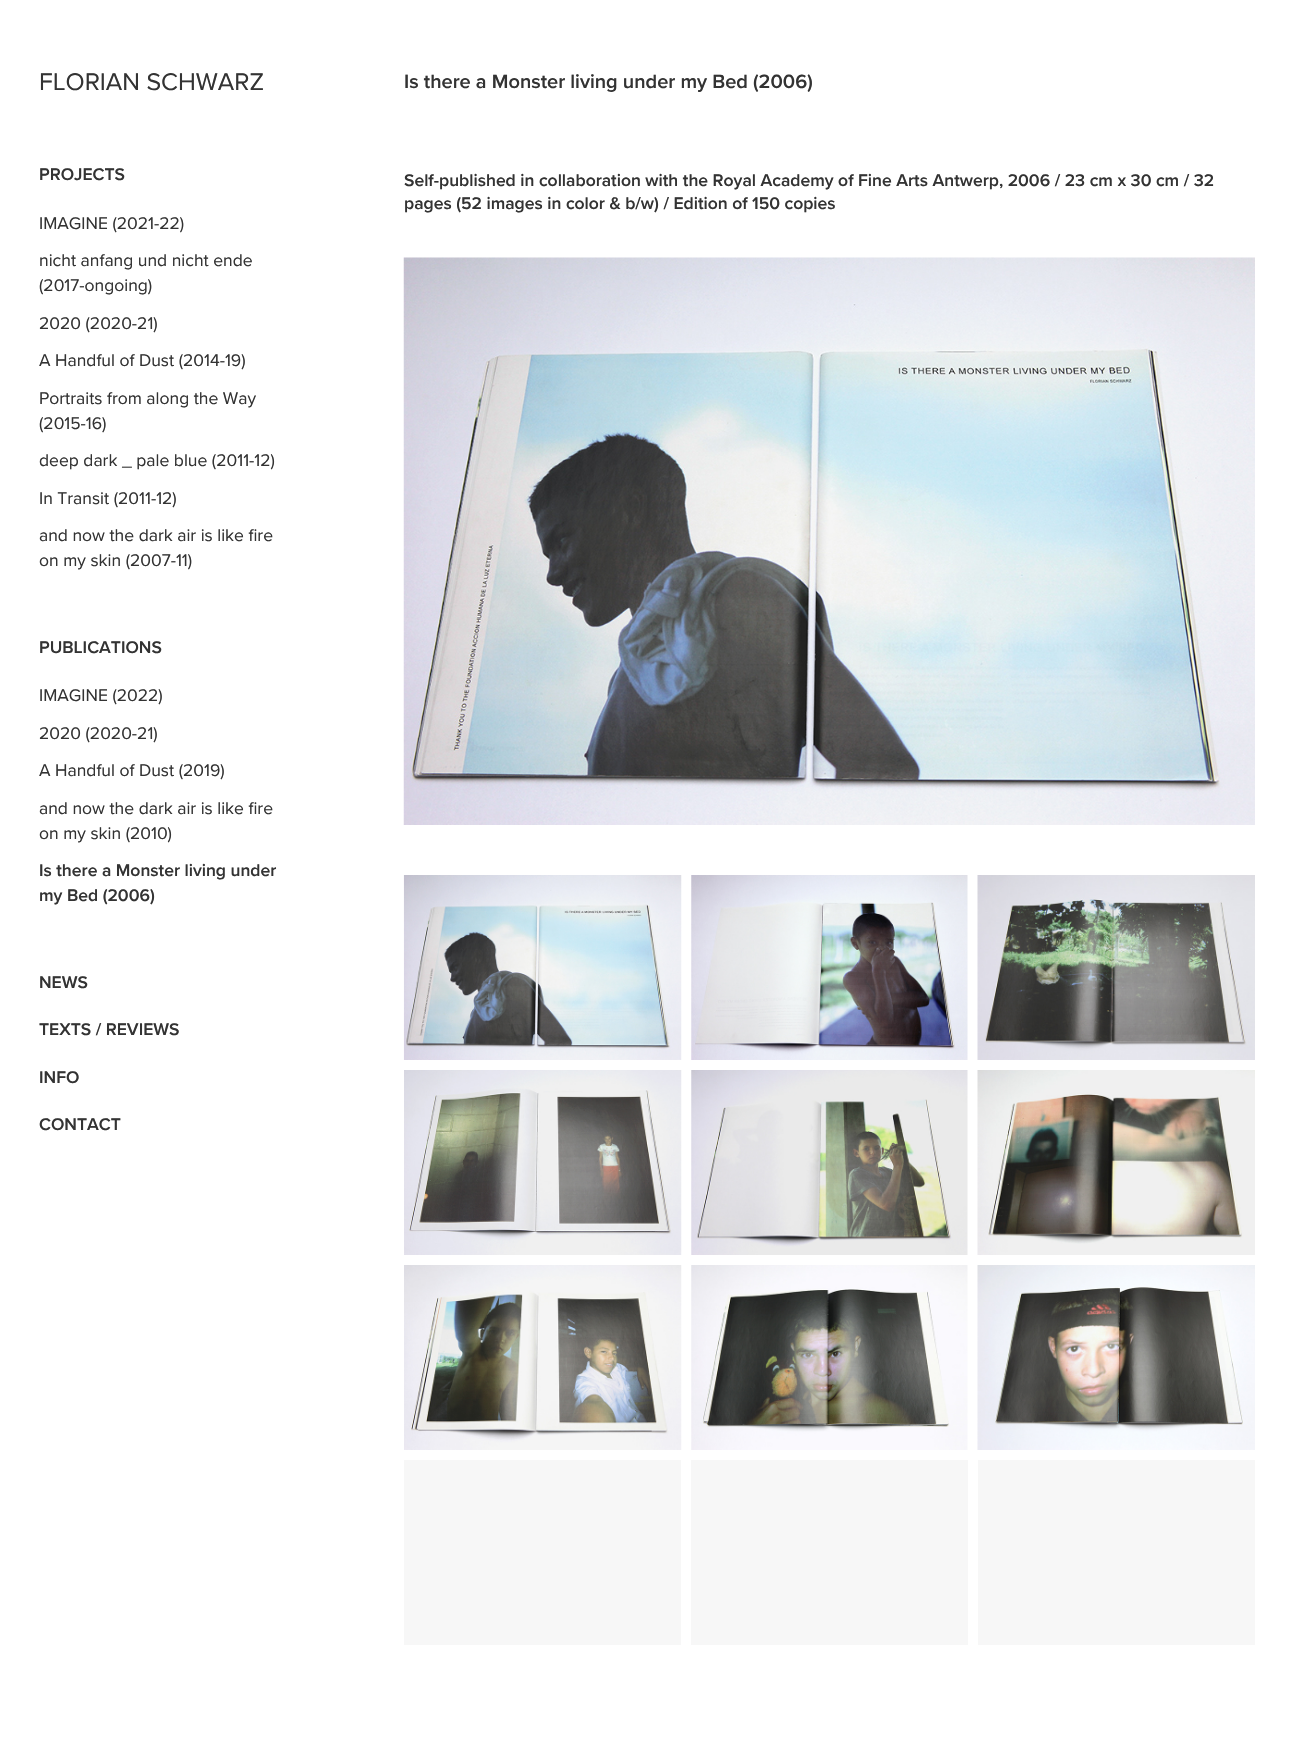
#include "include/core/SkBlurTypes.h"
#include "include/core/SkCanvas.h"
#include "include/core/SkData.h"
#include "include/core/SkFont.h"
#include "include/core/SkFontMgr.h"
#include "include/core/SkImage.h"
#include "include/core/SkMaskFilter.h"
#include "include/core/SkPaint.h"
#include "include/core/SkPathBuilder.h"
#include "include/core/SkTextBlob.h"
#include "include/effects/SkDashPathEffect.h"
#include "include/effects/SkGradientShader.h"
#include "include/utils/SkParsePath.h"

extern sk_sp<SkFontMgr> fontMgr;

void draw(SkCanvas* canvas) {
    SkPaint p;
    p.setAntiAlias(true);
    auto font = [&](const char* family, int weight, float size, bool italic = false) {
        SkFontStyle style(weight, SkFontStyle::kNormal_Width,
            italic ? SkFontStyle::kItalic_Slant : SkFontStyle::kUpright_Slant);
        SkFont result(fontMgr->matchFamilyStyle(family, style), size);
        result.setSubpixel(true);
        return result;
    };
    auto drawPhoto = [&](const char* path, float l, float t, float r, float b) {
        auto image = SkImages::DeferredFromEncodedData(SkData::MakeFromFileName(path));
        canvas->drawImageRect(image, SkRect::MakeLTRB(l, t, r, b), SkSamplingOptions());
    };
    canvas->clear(0xFFFFFFFF);
    auto font1 = font("Proxima Nova", 400, 25);
    p.setColor(0xFF333333);
    canvas->drawString("FLORIAN SCHWARZ", 39, 90, font1, p);
    auto font2 = font("Proxima Nova", 600, 17.5f);
    canvas->drawString("PROJECTS", 39, 180, font2, p);
    auto font3 = font("Proxima Nova", 400, 17.5f);
    {
        const struct { const char* s; float x, y; } items[] = {
            {"IMAGINE (2021-22)", 39, 229},
            {"nicht anfang und nicht ende", 39, 266},
            {"(2017-ongoing)", 39, 291},
            {"2020 (2020-21)", 39, 329},
            {"A Handful of Dust (2014-19)", 39, 366},
            {"Portraits from along the Way", 39, 404},
            {"(2015-16)", 39, 429},
            {"deep dark _ pale blue (2011-12)", 39, 466},
            {"In Transit (2011-12)", 39, 504},
            {"and now the dark air is like fire", 39, 541},
            {"on my skin (2007-11)", 39, 566},
        };
        for (auto [s, x, y] : items) {
            canvas->drawString(s, x, y, font3, p);
        }
    }
    canvas->drawString("PUBLICATIONS", 39, 653, font2, p);
    {
        const struct { const char* s; float x, y; } items[] = {
            {"IMAGINE (2022)", 39, 701},
            {"2020 (2020-21)", 39, 739},
            {"A Handful of Dust (2019)", 39, 776},
            {"and now the dark air is like fire", 39, 814},
            {"on my skin (2010)", 39, 839},
        };
        for (auto [s, x, y] : items) {
            canvas->drawString(s, x, y, font3, p);
        }
    }
    {
        const struct { const char* s; float x, y; } items[] = {
            {"Is there a Monster living under", 39, 876},
            {"my Bed (2006)", 39, 901},
            {"NEWS", 39, 988},
            {"TEXTS / REVIEWS", 39, 1035},
            {"INFO", 39, 1083},
            {"CONTACT", 39, 1130},
        };
        for (auto [s, x, y] : items) {
            canvas->drawString(s, x, y, font2, p);
        }
    }
    auto font4 = font("Proxima Nova", 600, 20);
    canvas->drawString("Is there a Monster living under my Bed (2006)", 404, 88, font4, p);
    canvas->drawString("Self-published in collaboration with the Royal Academy of Fine Arts Antwerp, 2006 / 23 cm x 30 cm / 32", 404, 186, font2, p);
    canvas->drawString("pages (52 images in color & b/w) / Edition of 150 copies", 404, 209, font2, p);
    drawPhoto("media/1.png", 403, 257, 1255, 825);
    drawPhoto("media/2.png", 403, 875, 682, 1060);
    drawPhoto("media/3.png", 691, 875, 968, 1060);
    drawPhoto("media/4.png", 977, 875, 1255, 1060);
    drawPhoto("media/5.png", 404, 1070, 682, 1255);
    drawPhoto("media/6.png", 691, 1070, 968, 1255);
    drawPhoto("media/7.png", 977, 1070, 1255, 1255);
    drawPhoto("media/8.png", 404, 1265, 682, 1450);
    drawPhoto("media/9.png", 691, 1265, 968, 1450);
    drawPhoto("media/10.png", 977, 1265, 1255, 1450);
    {
        const struct { float l, t, r, b; SkColor color; } items[] = {
            {404, 1460, 681, 1645, 0xFFF7F7F7},
            {691, 1460, 968, 1645, 0xFFF7F7F7},
            {978, 1460, 1255, 1645, 0xFFF7F7F7},
        };
        for (auto [l, t, r, b, color] : items) {
            p.setColor(color);
            canvas->drawRect(SkRect::MakeLTRB(l, t, r, b), p);
        }
    }
}
